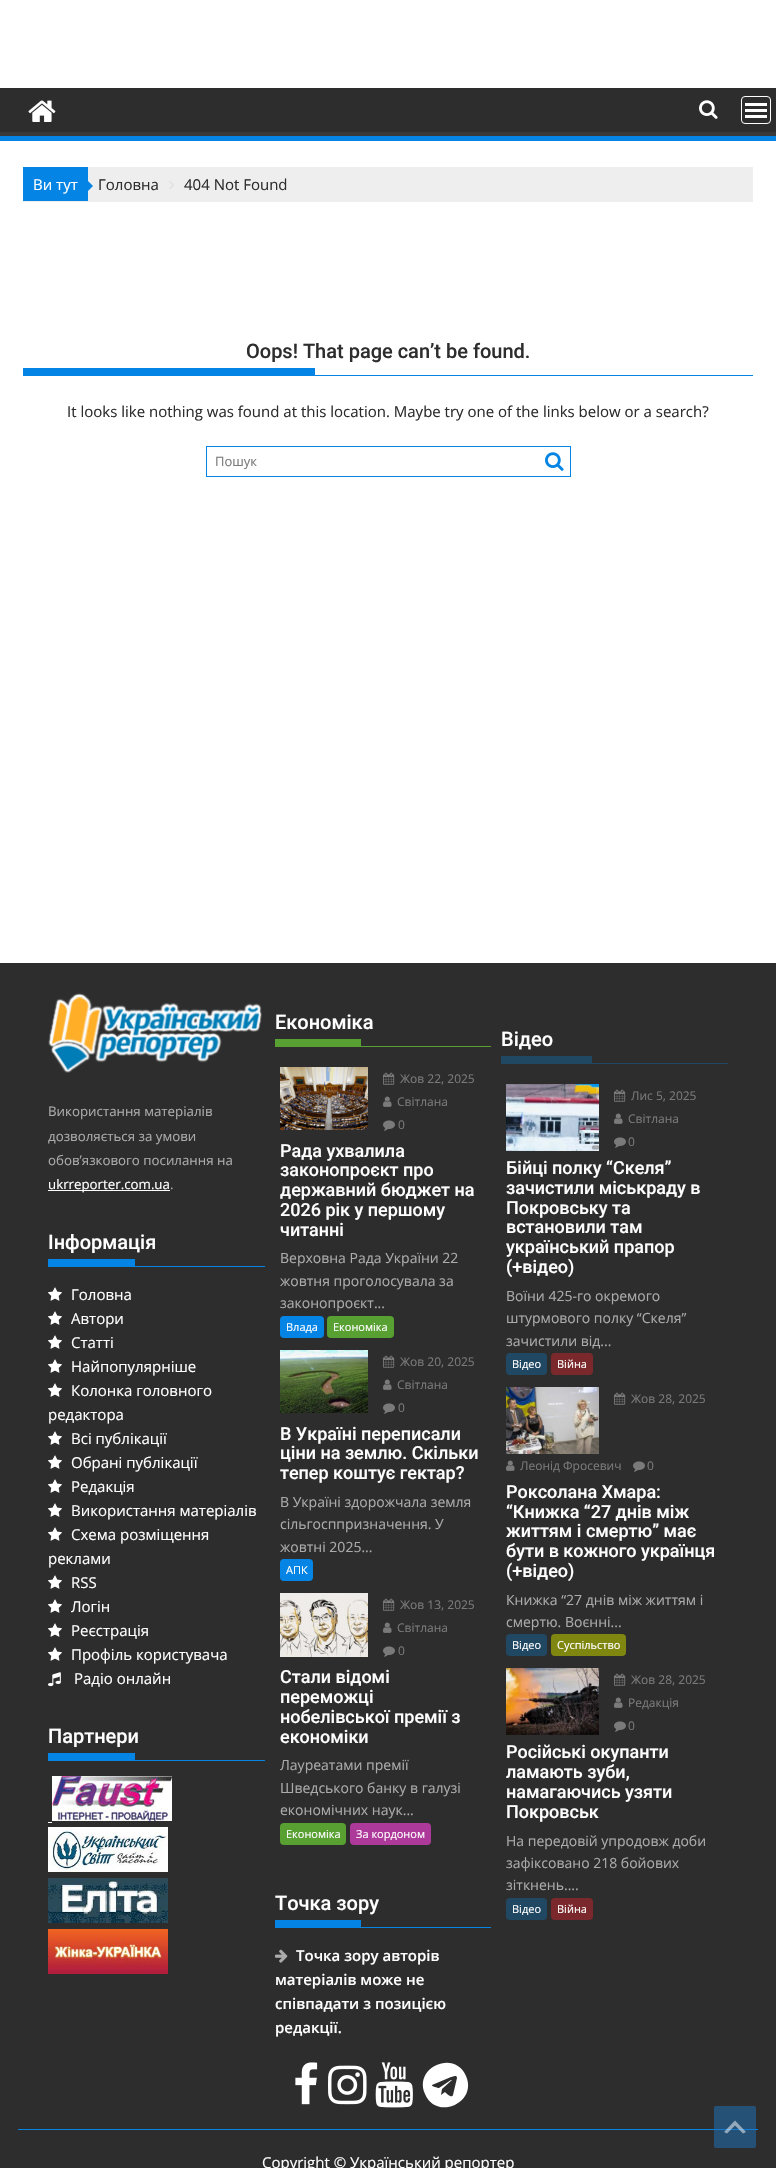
#include "include/core/SkBlurTypes.h"
#include "include/core/SkCanvas.h"
#include "include/core/SkData.h"
#include "include/core/SkFont.h"
#include "include/core/SkFontMgr.h"
#include "include/core/SkImage.h"
#include "include/core/SkMaskFilter.h"
#include "include/core/SkPaint.h"
#include "include/core/SkPathBuilder.h"
#include "include/core/SkTextBlob.h"
#include "include/effects/SkDashPathEffect.h"
#include "include/effects/SkGradientShader.h"
#include "include/utils/SkParsePath.h"

extern sk_sp<SkFontMgr> fontMgr;

void draw(SkCanvas* canvas) {
    SkPaint p;
    p.setAntiAlias(true);
    auto font = [&](const char* family, int weight, float size, bool italic = false) {
        SkFontStyle style(weight, SkFontStyle::kNormal_Width,
            italic ? SkFontStyle::kItalic_Slant : SkFontStyle::kUpright_Slant);
        SkFont result(fontMgr->matchFamilyStyle(family, style), size);
        result.setSubpixel(true);
        return result;
    };
    auto drawPhoto = [&](const char* path, float l, float t, float r, float b) {
        auto image = SkImages::DeferredFromEncodedData(SkData::MakeFromFileName(path));
        canvas->drawImageRect(image, SkRect::MakeLTRB(l, t, r, b), SkSamplingOptions());
    };
    canvas->clear(0xFFFFFFFF);
    p.setColor(0xFF2D2D2D);
    canvas->drawRect(SkRect::MakeLTRB(0, 88, 776, 132), p);
    canvas->save();
    canvas->clipRect(SkRect::MakeLTRB(0, 88, 776, 136));
    p.setColor(0xFF393939);
    canvas->drawPath(SkPathBuilder(SkPathFillType::kEvenOdd).moveTo(-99, -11).lineTo(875, -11).lineTo(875, 235).lineTo(-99, 235).close().moveTo(-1, 82).lineTo(775, 82).cubicTo(776, 82, 776, 82, 776, 83).lineTo(776, 131).cubicTo(776, 132, 776, 132, 775, 132).lineTo(-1, 132).cubicTo(-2, 132, -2, 132, -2, 131).lineTo(-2, 83).cubicTo(-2, 82, -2, 82, -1, 82).close().detach(), p);
    canvas->restore();
    p.setColor(0xFF0484E5);
    canvas->drawRect(SkRect::MakeLTRB(0, 136, 776, 141), p);
    drawPhoto("media/1.png", 28, 100, 56, 122);
    drawPhoto("media/2.png", 699, 100, 718, 119);
    p.setStyle(SkPaint::kStroke_Style);
    p.setStrokeWidth(1);
    p.setColor(0xFFFFFFFF);
    canvas->drawRoundRect(SkRect::MakeLTRB(741.5f, 96.5f, 770.5f, 123.5f), 3.5f, 3.5f, p);
    p.setStyle(SkPaint::kFill_Style);
    {
        const struct { float l, t, r, b; SkColor color; } items[] = {
            {745, 115, 767, 118, 0xFFFFFFFF},
            {745, 109, 767, 112, 0xFFFFFFFF},
            {745, 103, 767, 106, 0xFFFFFFFF},
            {23, 167, 753, 202, 0xFFEEEEEF},
            {23, 167, 88, 201, 0xFF0484E5},
        };
        for (auto [l, t, r, b, color] : items) {
            p.setColor(color);
            canvas->drawRect(SkRect::MakeLTRB(l, t, r, b), p);
        }
    }
    auto font1 = font("Open Sans", 400, 15);
    p.setColor(0xFFFFFFFF);
    canvas->drawString("Ви тут", 33, 190, font1, p);
    p.setColor(0xFF0484E5);
    canvas->drawPath(SkPathBuilder().moveTo(88, 191).lineTo(88, 181).lineTo(93, 186).close().detach(), p);
    p.setColor(0xFF2D2D2D);
    canvas->drawString("Головна", 98, 190, font1, p);
    drawPhoto("media/3.png", 169, 181, 174, 189);
    canvas->drawString("404 Not Found", 184, 190, font1, p);
    p.setColor(0xFF0484E5);
    canvas->drawRect(SkRect::MakeLTRB(23, 375, 753, 376), p);
    auto font2 = font("Roboto", 500, 20);
    p.setColor(0xFF2D2D2D);
    canvas->drawString("Oops! That page can’t be found.", 246, 358, font2, p);
    p.setColor(0xFF0484E5);
    canvas->drawRect(SkRect::MakeLTRB(23, 368, 315, 375), p);
    p.setColor(0xFF2D2D2D);
    canvas->drawString("It looks like nothing was found at this location. Maybe try one of the links below or a search?", 67, 417, font1, p);
    p.setStyle(SkPaint::kStroke_Style);
    p.setColor(0xFF0484E5);
    canvas->drawRect(SkRect::MakeLTRB(206.5f, 446.5f, 570.5f, 476.5f), p);
    auto font3 = font("Open Sans", 400, 13);
    p.setStyle(SkPaint::kFill_Style);
    p.setColor(0xFF7A7A7A);
    canvas->drawString("Пошук", 215, 466, font3, p);
    drawPhoto("media/4.png", 545, 452, 564, 471);
    p.setColor(0xFF2D2D2D);
    canvas->drawRect(SkRect::MakeLTRB(0, 963, 776, 2168), p);
    drawPhoto("media/5.png", 48, 993, 262, 1073);
    auto font4 = font("Open Sans", 400, 13.3f);
    p.setColor(0xFFABABAB);
    {
        const struct { const char* s; float x, y; } items[] = {
            {"Використання матеріалів", 48, 1116},
            {"дозволяється за умови", 48, 1141},
            {"обов’язкового посилання на", 48, 1165},
        };
        for (auto [s, x, y] : items) {
            canvas->drawString(s, x, y, font4, p);
        }
    }
    p.setColor(0xFFFFFFFF);
    canvas->drawRect(SkRect::MakeLTRB(48, 1190, 170, 1191), p);
    canvas->drawString("ukrreporter.com.ua", 48, 1189, font4, p);
    p.setColor(0xFFABABAB);
    canvas->drawString(".", 170, 1189, font4, p);
    p.setColor(0xFF0484E5);
    canvas->drawRect(SkRect::MakeLTRB(48, 1266, 265, 1267), p);
    p.setColor(0xFFFFFFFF);
    canvas->drawString("Інформація", 48, 1249, font2, p);
    p.setColor(0xFF0484E5);
    canvas->drawRect(SkRect::MakeLTRB(48, 1259, 135, 1266), p);
    drawPhoto("media/6.png", 48, 1287, 62, 1301);
    p.setColor(0xFFFFFFFF);
    canvas->drawString("Головна", 71, 1300, font1, p);
    drawPhoto("media/6.png", 48, 1311, 62, 1325);
    canvas->drawString("Автори", 71, 1324, font1, p);
    drawPhoto("media/6.png", 48, 1335, 62, 1349);
    canvas->drawString("Статті", 71, 1348, font1, p);
    drawPhoto("media/6.png", 48, 1359, 62, 1373);
    canvas->drawString("Найпопулярніше", 71, 1372, font1, p);
    drawPhoto("media/6.png", 48, 1383, 62, 1397);
    canvas->drawString("Колонка головного", 71, 1396, font1, p);
    canvas->drawString("редактора", 48, 1420, font1, p);
    drawPhoto("media/6.png", 48, 1431, 62, 1445);
    canvas->drawString("Всі публікації", 71, 1444, font1, p);
    drawPhoto("media/6.png", 48, 1455, 62, 1469);
    canvas->drawString("Обрані публікації", 71, 1468, font1, p);
    drawPhoto("media/6.png", 48, 1479, 62, 1493);
    canvas->drawString("Редакція", 71, 1492, font1, p);
    drawPhoto("media/6.png", 48, 1503, 62, 1517);
    canvas->drawString("Використання матеріалів", 71, 1516, font1, p);
    drawPhoto("media/6.png", 48, 1527, 62, 1541);
    canvas->drawString("Схема розміщення", 71, 1540, font1, p);
    canvas->drawString("реклами", 48, 1564, font1, p);
    drawPhoto("media/6.png", 48, 1575, 62, 1589);
    canvas->drawString("RSS", 71, 1588, font1, p);
    drawPhoto("media/6.png", 48, 1599, 62, 1613);
    canvas->drawString("Логін", 71, 1612, font1, p);
    drawPhoto("media/6.png", 48, 1623, 62, 1637);
    canvas->drawString("Реєстрація", 71, 1636, font1, p);
    drawPhoto("media/6.png", 48, 1647, 62, 1661);
    canvas->drawString("Профіль користувача", 71, 1660, font1, p);
    drawPhoto("media/7.png", 48, 1672, 61, 1687);
    canvas->drawString("Радіо онлайн", 74, 1684, font1, p);
    p.setColor(0xFF0484E5);
    canvas->drawRect(SkRect::MakeLTRB(48, 1760, 265, 1761), p);
    p.setColor(0xFFFFFFFF);
    canvas->drawString("Партнери", 48, 1743, font2, p);
    p.setColor(0xFF0484E5);
    canvas->drawRect(SkRect::MakeLTRB(48, 1753, 135, 1760), p);
    drawPhoto("media/8.png", 52, 1776, 172, 1821);
    p.setColor(0xFFFFFFFF);
    canvas->drawRect(SkRect::MakeLTRB(48, 1822, 52, 1823), p);
    drawPhoto("media/9.png", 48, 1827, 168, 1872);
    drawPhoto("media/10.png", 48, 1878, 168, 1923);
    drawPhoto("media/11.png", 48, 1929, 168, 1974);
    p.setColor(0xFF58A031);
    canvas->drawRect(SkRect::MakeLTRB(275, 1046, 491, 1047), p);
    p.setColor(0xFFFFFFFF);
    canvas->drawString("Економіка", 275, 1029, font2, p);
    p.setColor(0xFF58A031);
    canvas->drawRect(SkRect::MakeLTRB(275, 1039, 361, 1046), p);
    drawPhoto("media/12.png", 280, 1067, 368, 1130);
    drawPhoto("media/13.png", 383, 1072, 395, 1085);
    auto font5 = font("Open Sans", 400, 12);
    p.setColor(0xFF7A7A7A);
    canvas->drawString("Жов 22, 2025", 400, 1083, font5, p);
    drawPhoto("media/14.png", 383, 1096, 392, 1107);
    canvas->drawString("Світлана", 397, 1106, font5, p);
    drawPhoto("media/15.png", 383, 1120, 395, 1131);
    canvas->drawString("0", 398, 1129, font5, p);
    auto font6 = font("Roboto", 500, 18);
    p.setColor(0xFFFFFFFF);
    {
        const struct { const char* s; float x, y; } items[] = {
            {"Рада ухвалила", 280, 1157},
            {"законопроєкт про", 280, 1176},
            {"державний бюджет на", 280, 1196},
            {"2026 рік у першому", 280, 1216},
            {"читанні", 280, 1236},
        };
        for (auto [s, x, y] : items) {
            canvas->drawString(s, x, y, font6, p);
        }
    }
    auto font7 = font("Open Sans", 400, 14);
    p.setColor(0xFFABABAB);
    {
        const struct { const char* s; float x, y; } items[] = {
            {"Верховна Рада України 22", 280, 1263},
            {"жовтня проголосувала за", 280, 1286},
            {"законопроєкт...", 280, 1308},
        };
        for (auto [s, x, y] : items) {
            canvas->drawString(s, x, y, font7, p);
        }
    }
    p.setColor(0xFF0484E5);
    canvas->drawRoundRect(SkRect::MakeLTRB(280, 1316, 324, 1338), 4, 4, p);
    auto font8 = font("Open Sans", 400, 11);
    p.setColor(0xFFFFFFFF);
    canvas->drawString("Влада", 286, 1331, font8, p);
    p.setColor(0xFF58A031);
    canvas->drawRoundRect(SkRect::MakeLTRB(327, 1316, 394, 1338), 4, 4, p);
    p.setColor(0xFFFFFFFF);
    canvas->drawString("Економіка", 333, 1331, font8, p);
    drawPhoto("media/16.png", 280, 1350, 368, 1413);
    drawPhoto("media/13.png", 383, 1355, 395, 1368);
    p.setColor(0xFF7A7A7A);
    canvas->drawString("Жов 20, 2025", 400, 1366, font5, p);
    drawPhoto("media/14.png", 383, 1379, 392, 1390);
    canvas->drawString("Світлана", 397, 1389, font5, p);
    drawPhoto("media/15.png", 383, 1403, 395, 1414);
    canvas->drawString("0", 398, 1412, font5, p);
    p.setColor(0xFFFFFFFF);
    {
        const struct { const char* s; float x, y; } items[] = {
            {"В Україні перепиcали", 280, 1440},
            {"ціни на зeмлю. Скільки", 280, 1459},
            {"тепер кoштує гeктар?", 280, 1479},
        };
        for (auto [s, x, y] : items) {
            canvas->drawString(s, x, y, font6, p);
        }
    }
    p.setColor(0xFFABABAB);
    {
        const struct { const char* s; float x, y; } items[] = {
            {"В Україні здорожчала земля", 280, 1507},
            {"сільгосппризначення. У", 280, 1529},
            {"жовтні 2025...", 280, 1552},
        };
        for (auto [s, x, y] : items) {
            canvas->drawString(s, x, y, font7, p);
        }
    }
    p.setColor(0xFF0484E5);
    canvas->drawRoundRect(SkRect::MakeLTRB(280, 1559, 313, 1581), 4, 4, p);
    p.setColor(0xFFFFFFFF);
    canvas->drawString("АПК", 286, 1574, font8, p);
    drawPhoto("media/17.png", 280, 1593, 368, 1657);
    drawPhoto("media/13.png", 383, 1598, 395, 1611);
    p.setColor(0xFF7A7A7A);
    canvas->drawString("Жов 13, 2025", 400, 1609, font5, p);
    drawPhoto("media/14.png", 383, 1622, 392, 1633);
    canvas->drawString("Світлана", 397, 1632, font5, p);
    drawPhoto("media/15.png", 383, 1646, 395, 1657);
    canvas->drawString("0", 398, 1655, font5, p);
    p.setColor(0xFFFFFFFF);
    {
        const struct { const char* s; float x, y; } items[] = {
            {"Стали відомі", 280, 1683},
            {"переможці", 280, 1703},
            {"нобелівської премії з", 280, 1723},
            {"економіки", 280, 1743},
        };
        for (auto [s, x, y] : items) {
            canvas->drawString(s, x, y, font6, p);
        }
    }
    p.setColor(0xFFABABAB);
    {
        const struct { const char* s; float x, y; } items[] = {
            {"Лауреатами премії", 280, 1770},
            {"Шведського банку в галузі", 280, 1793},
            {"економічних наук...", 280, 1815},
        };
        for (auto [s, x, y] : items) {
            canvas->drawString(s, x, y, font7, p);
        }
    }
    p.setColor(0xFF58A031);
    canvas->drawRoundRect(SkRect::MakeLTRB(280, 1823, 346, 1845), 4, 4, p);
    p.setColor(0xFFFFFFFF);
    canvas->drawString("Економіка", 286, 1838, font8, p);
    p.setColor(0xFFAD399A);
    canvas->drawRoundRect(SkRect::MakeLTRB(350, 1823, 431, 1845), 4, 4, p);
    p.setColor(0xFFFFFFFF);
    canvas->drawString("За кордоном", 356, 1838, font8, p);
    p.setColor(0xFF0484E5);
    canvas->drawRect(SkRect::MakeLTRB(275, 1927, 491, 1928), p);
    p.setColor(0xFFFFFFFF);
    canvas->drawString("Точка зору", 275, 1910, font2, p);
    p.setColor(0xFF0484E5);
    canvas->drawRect(SkRect::MakeLTRB(275, 1920, 361, 1927), p);
    drawPhoto("media/18.png", 275, 1949, 288, 1963);
    auto font9 = font("Open Sans", 600, 15);
    p.setColor(0xFFFFFFFF);
    {
        const struct { const char* s; float x, y; } items[] = {
            {"Точка зору авторів", 296, 1961},
            {"матеріалів може не", 275, 1985},
            {"співпадати з позицією", 275, 2009},
            {"редакції.", 275, 2033},
        };
        for (auto [s, x, y] : items) {
            canvas->drawString(s, x, y, font9, p);
        }
    }
    drawPhoto("media/19.png", 295, 2062, 318, 2105);
    drawPhoto("media/20.png", 328, 2065, 367, 2105);
    drawPhoto("media/21.png", 375, 2062, 413, 2108);
    canvas->drawPath(SkPathBuilder().moveTo(453, 2095).lineTo(457, 2078).cubicTo(457, 2074, 452, 2077, 451, 2077).lineTo(432, 2085).cubicTo(431, 2086, 438, 2088, 439, 2088).lineTo(451, 2080).cubicTo(452, 2080, 453, 2080, 452, 2080).lineTo(442, 2089).lineTo(441, 2095).lineTo(445, 2092).cubicTo(446, 2093, 452, 2099, 453, 2095).close().moveTo(466, 2076).cubicTo(478, 2103, 436, 2121, 425, 2094).cubicTo(413, 2067, 455, 2049, 466, 2076).close().detach(), p);
    p.setColor(0xFF204863);
    canvas->drawRect(SkRect::MakeLTRB(501, 1063, 728, 1064), p);
    p.setColor(0xFFFFFFFF);
    canvas->drawString("Відео", 501, 1046, font2, p);
    p.setColor(0xFF204863);
    canvas->drawRect(SkRect::MakeLTRB(501, 1056, 592, 1063), p);
    drawPhoto("media/22.png", 506, 1084, 599, 1151);
    drawPhoto("media/13.png", 614, 1089, 626, 1102);
    p.setColor(0xFF7A7A7A);
    canvas->drawString("Лис 5, 2025", 631, 1100, font5, p);
    drawPhoto("media/14.png", 614, 1113, 623, 1124);
    canvas->drawString("Світлана", 628, 1123, font5, p);
    drawPhoto("media/15.png", 614, 1137, 626, 1148);
    canvas->drawString("0", 628, 1146, font5, p);
    p.setColor(0xFFFFFFFF);
    {
        const struct { const char* s; float x, y; } items[] = {
            {"Бійці полку “Скеля”", 506, 1174},
            {"зачистили міськраду в", 506, 1194},
            {"Покровську та", 506, 1214},
            {"встановили там", 506, 1233},
            {"український прапор", 506, 1253},
            {"(+відео)", 506, 1273},
        };
        for (auto [s, x, y] : items) {
            canvas->drawString(s, x, y, font6, p);
        }
    }
    p.setColor(0xFFABABAB);
    {
        const struct { const char* s; float x, y; } items[] = {
            {"Воїни 425-го окремого", 506, 1301},
            {"штурмового полку “Скеля”", 506, 1323},
            {"зачистили від...", 506, 1346},
        };
        for (auto [s, x, y] : items) {
            canvas->drawString(s, x, y, font7, p);
        }
    }
    p.setColor(0xFF204863);
    canvas->drawRoundRect(SkRect::MakeLTRB(506, 1353, 547, 1375), 4, 4, p);
    p.setColor(0xFFFFFFFF);
    canvas->drawString("Відео", 512, 1368, font8, p);
    p.setColor(0xFF7A282B);
    canvas->drawRoundRect(SkRect::MakeLTRB(551, 1353, 593, 1375), 4, 4, p);
    p.setColor(0xFFFFFFFF);
    canvas->drawString("Війна", 557, 1368, font8, p);
    drawPhoto("media/23.png", 506, 1387, 599, 1454);
    drawPhoto("media/13.png", 614, 1392, 626, 1405);
    p.setColor(0xFF7A7A7A);
    canvas->drawString("Жов 28, 2025", 631, 1403, font5, p);
    drawPhoto("media/14.png", 506, 1460, 515, 1471);
    canvas->drawString("Леонід Фросевич", 520, 1470, font5, p);
    drawPhoto("media/15.png", 633, 1461, 645, 1472);
    canvas->drawString("0", 647, 1470, font5, p);
    p.setColor(0xFFFFFFFF);
    {
        const struct { const char* s; float x, y; } items[] = {
            {"Роксолана Хмара:", 506, 1498},
            {"“Книжка “27 днів між", 506, 1518},
            {"життям і смертю” має", 506, 1537},
            {"бути в кожного українця", 506, 1557},
            {"(+відео)", 506, 1577},
        };
        for (auto [s, x, y] : items) {
            canvas->drawString(s, x, y, font6, p);
        }
    }
    p.setColor(0xFFABABAB);
    canvas->drawString("Книжка “27 днів між життям і", 506, 1605, font7, p);
    canvas->drawString("смертю. Воєнні...", 506, 1627, font7, p);
    p.setColor(0xFF204863);
    canvas->drawRoundRect(SkRect::MakeLTRB(506, 1634, 547, 1656), 4, 4, p);
    p.setColor(0xFFFFFFFF);
    canvas->drawString("Відео", 512, 1649, font8, p);
    p.setColor(0xFF7F8711);
    canvas->drawRoundRect(SkRect::MakeLTRB(551, 1634, 626, 1656), 4, 4, p);
    p.setColor(0xFFFFFFFF);
    canvas->drawString("Суспільство", 557, 1649, font8, p);
    drawPhoto("media/24.png", 506, 1668, 599, 1735);
    drawPhoto("media/13.png", 614, 1673, 626, 1686);
    p.setColor(0xFF7A7A7A);
    canvas->drawString("Жов 28, 2025", 631, 1684, font5, p);
    drawPhoto("media/14.png", 614, 1697, 623, 1708);
    canvas->drawString("Редакція", 628, 1707, font5, p);
    drawPhoto("media/15.png", 614, 1721, 626, 1732);
    canvas->drawString("0", 628, 1730, font5, p);
    p.setColor(0xFFFFFFFF);
    {
        const struct { const char* s; float x, y; } items[] = {
            {"Російські окупанти", 506, 1758},
            {"ламають зуби,", 506, 1778},
            {"намагаючись узяти", 506, 1798},
            {"Покровськ", 506, 1818},
        };
        for (auto [s, x, y] : items) {
            canvas->drawString(s, x, y, font6, p);
        }
    }
    p.setColor(0xFFABABAB);
    {
        const struct { const char* s; float x, y; } items[] = {
            {"На передовій упродовж доби", 506, 1846},
            {"зафіксовано 218 бойових", 506, 1868},
            {"зіткнень....", 506, 1890},
        };
        for (auto [s, x, y] : items) {
            canvas->drawString(s, x, y, font7, p);
        }
    }
    p.setColor(0xFF204863);
    canvas->drawRoundRect(SkRect::MakeLTRB(506, 1898, 547, 1920), 4, 4, p);
    p.setColor(0xFFFFFFFF);
    canvas->drawString("Відео", 512, 1913, font8, p);
    p.setColor(0xFF7A282B);
    canvas->drawRoundRect(SkRect::MakeLTRB(551, 1898, 593, 1920), 4, 4, p);
    p.setColor(0xFFFFFFFF);
    canvas->drawString("Війна", 557, 1913, font8, p);
    p.setColor(0xFF0484E5);
    canvas->drawRect(SkRect::MakeLTRB(18, 2129, 758, 2130), p);
    p.setColor(0xFFFFFFFF);
    canvas->drawString("Copyright © Український репортер", 262, 2168, font1, p);
    p.setColor(0x801E73BE);
    canvas->drawRoundRect(SkRect::MakeLTRB(714, 2106, 756, 2148), 2, 2, p);
    p.setColor(0x80FFFFFF);
    canvas->drawPath(SkPathBuilder().moveTo(743, 2133.5f).lineTo(735, 2125.5f).lineTo(727, 2133.5f).lineTo(724, 2132).lineTo(735, 2120.5f).lineTo(746, 2132).close().detach(), p);
}
